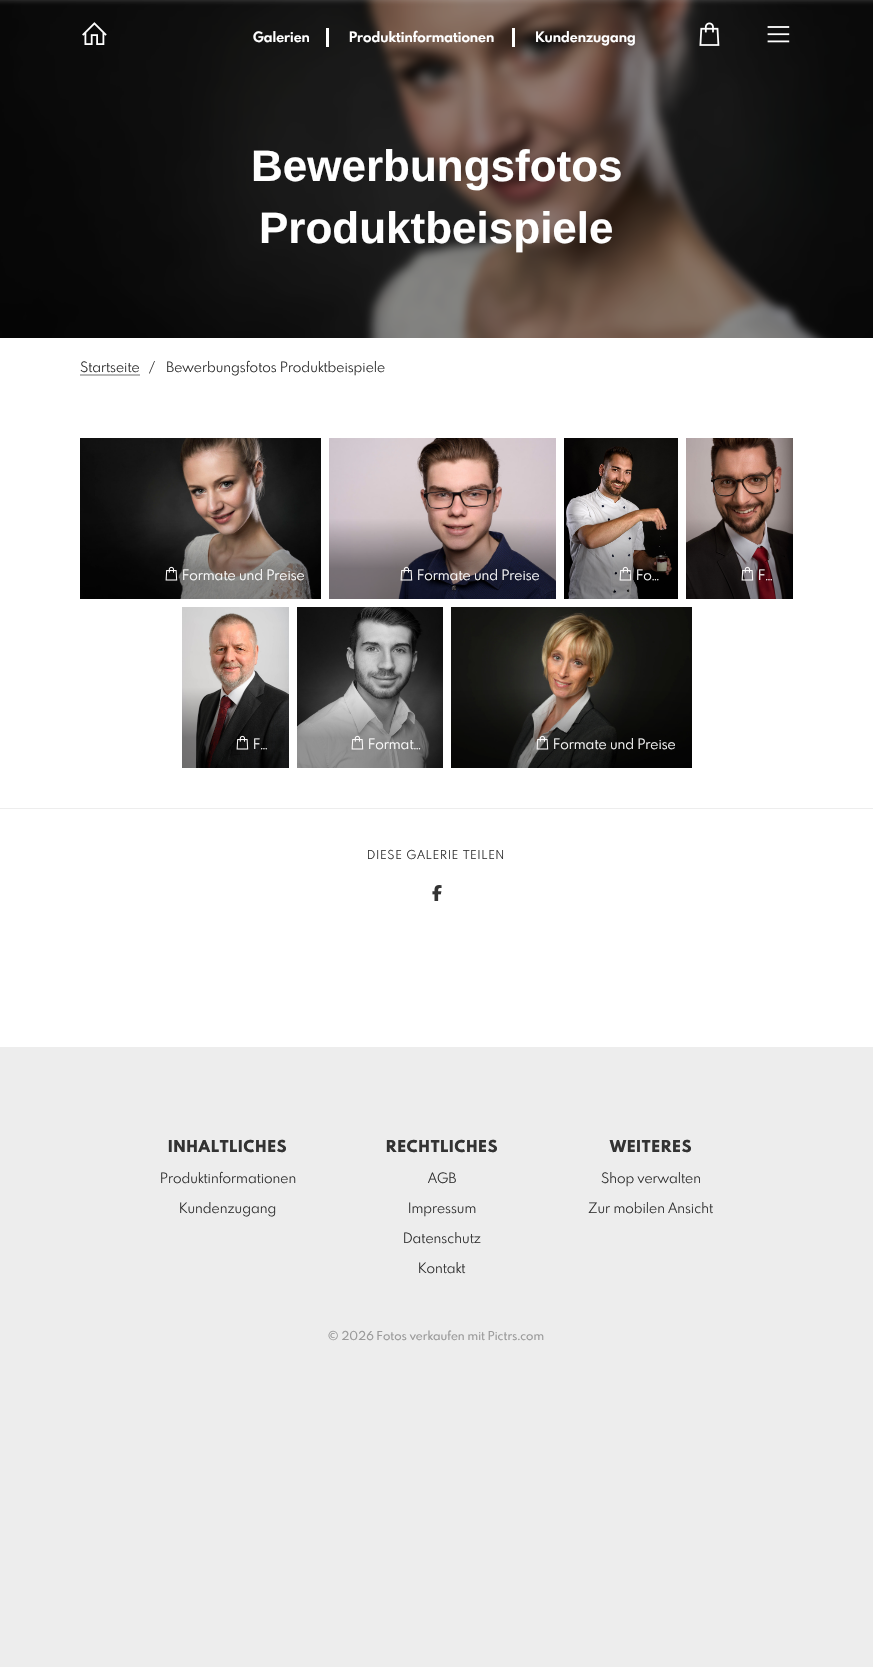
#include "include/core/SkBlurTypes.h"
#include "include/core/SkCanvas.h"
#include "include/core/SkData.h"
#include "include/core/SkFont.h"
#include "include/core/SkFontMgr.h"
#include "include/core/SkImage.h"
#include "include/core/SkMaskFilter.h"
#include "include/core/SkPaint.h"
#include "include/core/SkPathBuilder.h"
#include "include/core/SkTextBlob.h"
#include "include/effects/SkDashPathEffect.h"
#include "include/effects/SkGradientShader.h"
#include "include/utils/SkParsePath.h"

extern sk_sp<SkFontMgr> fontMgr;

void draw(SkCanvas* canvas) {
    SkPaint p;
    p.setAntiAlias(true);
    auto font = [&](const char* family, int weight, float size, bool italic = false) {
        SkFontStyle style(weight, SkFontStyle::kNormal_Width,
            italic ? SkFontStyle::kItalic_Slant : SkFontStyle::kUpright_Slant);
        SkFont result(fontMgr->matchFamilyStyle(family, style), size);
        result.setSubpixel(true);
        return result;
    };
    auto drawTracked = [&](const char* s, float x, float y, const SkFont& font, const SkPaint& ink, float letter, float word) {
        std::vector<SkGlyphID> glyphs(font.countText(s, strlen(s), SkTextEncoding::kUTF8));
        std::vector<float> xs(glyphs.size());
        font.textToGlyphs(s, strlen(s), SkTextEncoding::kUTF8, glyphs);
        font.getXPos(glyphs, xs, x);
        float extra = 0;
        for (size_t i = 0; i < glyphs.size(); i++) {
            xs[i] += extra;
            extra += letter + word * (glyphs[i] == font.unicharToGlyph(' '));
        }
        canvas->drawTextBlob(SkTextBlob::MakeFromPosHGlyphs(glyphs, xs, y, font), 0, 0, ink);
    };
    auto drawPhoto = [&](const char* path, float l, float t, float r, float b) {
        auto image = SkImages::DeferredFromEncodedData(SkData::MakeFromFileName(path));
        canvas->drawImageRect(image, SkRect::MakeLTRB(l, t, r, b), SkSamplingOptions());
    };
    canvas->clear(0xFFEDEDED);
    drawPhoto("media/1.png", 0, 0, 873, 338);
    drawPhoto("media/2.png", 82, 22, 107, 45);
    auto font1 = font("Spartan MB", 700, 14);
    p.setColor(0xFFFFFFFF);
    canvas->drawString("Galerien", 253, 42, font1, p);
    canvas->drawRect(SkRect::MakeLTRB(326, 28, 329, 47), p);
    canvas->drawString("Produktinformationen", 349, 42, font1, p);
    canvas->drawRect(SkRect::MakeLTRB(512, 28, 515, 47), p);
    canvas->drawString("Kundenzugang", 535, 42, font1, p);
    drawPhoto("media/3.png", 699, 22, 720, 46);
    drawPhoto("media/4.png", 767, 26, 790, 43);
    auto font2 = font("Liberation Sans", 700, 44);
    canvas->drawString("Bewerbungsfotos", 251, 181, font2, p);
    canvas->drawString("Produktbeispiele", 259, 243, font2, p);
    canvas->drawRect(SkRect::MakeLTRB(0, 338, 873, 1047), p);
    auto font3 = font("Spartan MB", 400, 14);
    p.setColor(0xFF333333);
    canvas->drawString("Startseite", 80, 372, font3, p);
    p.setColor(0xFFB8B8B8);
    canvas->drawRect(SkRect::MakeLTRB(80, 374, 140, 376), p);
    p.setColor(0xFF333333);
    canvas->drawString("/", 149, 372, font3, p);
    canvas->drawString("Bewerbungsfotos Produktbeispiele", 166, 372, font3, p);
    drawPhoto("media/5.png", 80, 438, 321, 599);
    drawPhoto("media/6.png", 165, 566, 178, 581);
    p.setColor(0xFFFFFFFF);
    canvas->drawString("Formate und Preise", 182, 580, font3, p);
    drawPhoto("media/7.png", 329, 438, 556, 599);
    drawPhoto("media/8.png", 400, 566, 413, 581);
    canvas->drawString("Formate und Preise", 417, 580, font3, p);
    drawPhoto("media/9.png", 564, 438, 678, 599);
    drawPhoto("media/10.png", 619, 566, 632, 581);
    canvas->drawString("Fo…", 636, 580, font3, p);
    drawPhoto("media/11.png", 686, 438, 793, 599);
    drawPhoto("media/12.png", 741, 566, 754, 581);
    canvas->drawString("F…", 758, 580, font3, p);
    drawPhoto("media/13.png", 182, 607, 289, 768);
    drawPhoto("media/14.png", 236, 735, 249, 750);
    canvas->drawString("F…", 253, 749, font3, p);
    drawPhoto("media/15.png", 297, 607, 443, 768);
    drawPhoto("media/16.png", 351, 735, 364, 750);
    canvas->drawString("Format…", 368, 749, font3, p);
    drawPhoto("media/17.png", 451, 607, 692, 768);
    drawPhoto("media/18.png", 536, 735, 549, 750);
    canvas->drawString("Formate und Preise", 553, 749, font3, p);
    p.setColor(0xFFEDEDED);
    canvas->drawRect(SkRect::MakeLTRB(0, 808, 873, 809), p);
    auto font4 = font("Spartan MB", 400, 12);
    p.setColor(0xFF333333);
    drawTracked("DIESE GALERIE TEILEN", 367, 859, font4, p, 1, 0);
    drawPhoto("media/19.png", 432, 885, 442, 901);
    auto font5 = font("Spartan MB", 800, 16);
    drawTracked("INHALTLICHES", 168, 1152, font5, p, 1, 0);
    canvas->drawString("Produktinformationen", 160, 1183, font3, p);
    canvas->drawString("Kundenzugang", 179, 1213, font3, p);
    drawTracked("RECHTLICHES", 386, 1152, font5, p, 1, 0);
    {
        const struct { const char* s; float x, y; } items[] = {
            {"AGB", 428, 1183},
            {"Impressum", 408, 1213},
            {"Datenschutz", 403, 1243},
            {"Kontakt", 418, 1273},
        };
        for (auto [s, x, y] : items) {
            canvas->drawString(s, x, y, font3, p);
        }
    }
    drawTracked("WEITERES", 610, 1152, font5, p, 1, 0);
    canvas->drawString("Shop verwalten", 601, 1183, font3, p);
    canvas->drawString("Zur mobilen Ansicht", 588, 1213, font3, p);
    auto font6 = font("Spartan MB", 500, 12);
    p.setColor(0xFF9B9B9B);
    canvas->drawString("© 2026 Fotos verkaufen mit Pictrs.com", 328, 1340, font6, p);
}
